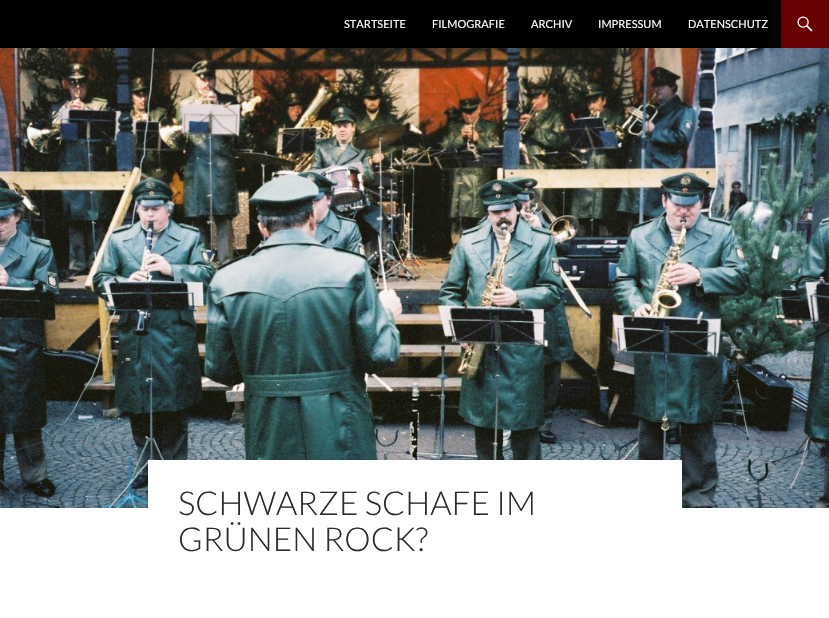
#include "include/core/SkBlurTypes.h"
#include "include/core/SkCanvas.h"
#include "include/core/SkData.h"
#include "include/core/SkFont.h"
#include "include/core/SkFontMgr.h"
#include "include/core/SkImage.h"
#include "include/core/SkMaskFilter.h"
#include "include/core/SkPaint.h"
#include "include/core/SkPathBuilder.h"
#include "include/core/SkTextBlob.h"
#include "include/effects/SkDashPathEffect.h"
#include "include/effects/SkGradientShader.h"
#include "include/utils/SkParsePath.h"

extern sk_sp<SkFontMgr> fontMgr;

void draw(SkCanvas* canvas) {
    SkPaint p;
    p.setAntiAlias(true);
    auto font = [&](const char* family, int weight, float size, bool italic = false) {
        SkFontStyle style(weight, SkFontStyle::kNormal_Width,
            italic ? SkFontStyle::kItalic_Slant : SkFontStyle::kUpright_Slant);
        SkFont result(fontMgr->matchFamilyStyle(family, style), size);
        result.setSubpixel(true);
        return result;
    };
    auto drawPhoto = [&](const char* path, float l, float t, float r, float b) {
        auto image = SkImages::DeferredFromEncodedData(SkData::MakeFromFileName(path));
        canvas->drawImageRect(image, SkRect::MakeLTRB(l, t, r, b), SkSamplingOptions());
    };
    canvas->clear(0xFFFFFFFF);
    p.setColor(0xFF000000);
    canvas->drawRect(SkRect::MakeLTRB(0, 0, 781, 48), p);
    auto font1 = font("Lato", 400, 11);
    p.setColor(0xFFFFFFFF);
    {
        const struct { const char* s; float x, y; } items[] = {
            {"STARTSEITE", 344, 28},
            {"FILMOGRAFIE", 432, 28},
            {"ARCHIV", 531, 28},
            {"IMPRESSUM", 598, 28},
            {"DATENSCHUTZ", 688, 28},
        };
        for (auto [s, x, y] : items) {
            canvas->drawString(s, x, y, font1, p);
        }
    }
    p.setColor(0xFF690101);
    canvas->drawRect(SkRect::MakeLTRB(781, 0, 829, 48), p);
    drawPhoto("media/1.png", 797, 16, 813, 32);
    drawPhoto("media/2.png", 0, 48, 829, 508);
    p.setColor(0xFFFFFFFF);
    canvas->drawRect(SkRect::MakeLTRB(148, 460, 682, 508), p);
    auto font2 = font("Lato", 300, 33);
    p.setColor(0xFF2B2B2B);
    canvas->drawString("SCHWARZE SCHAFE IM", 178, 515, font2, p);
    canvas->drawString("GRÜNEN ROCK?", 178, 551, font2, p);
}
